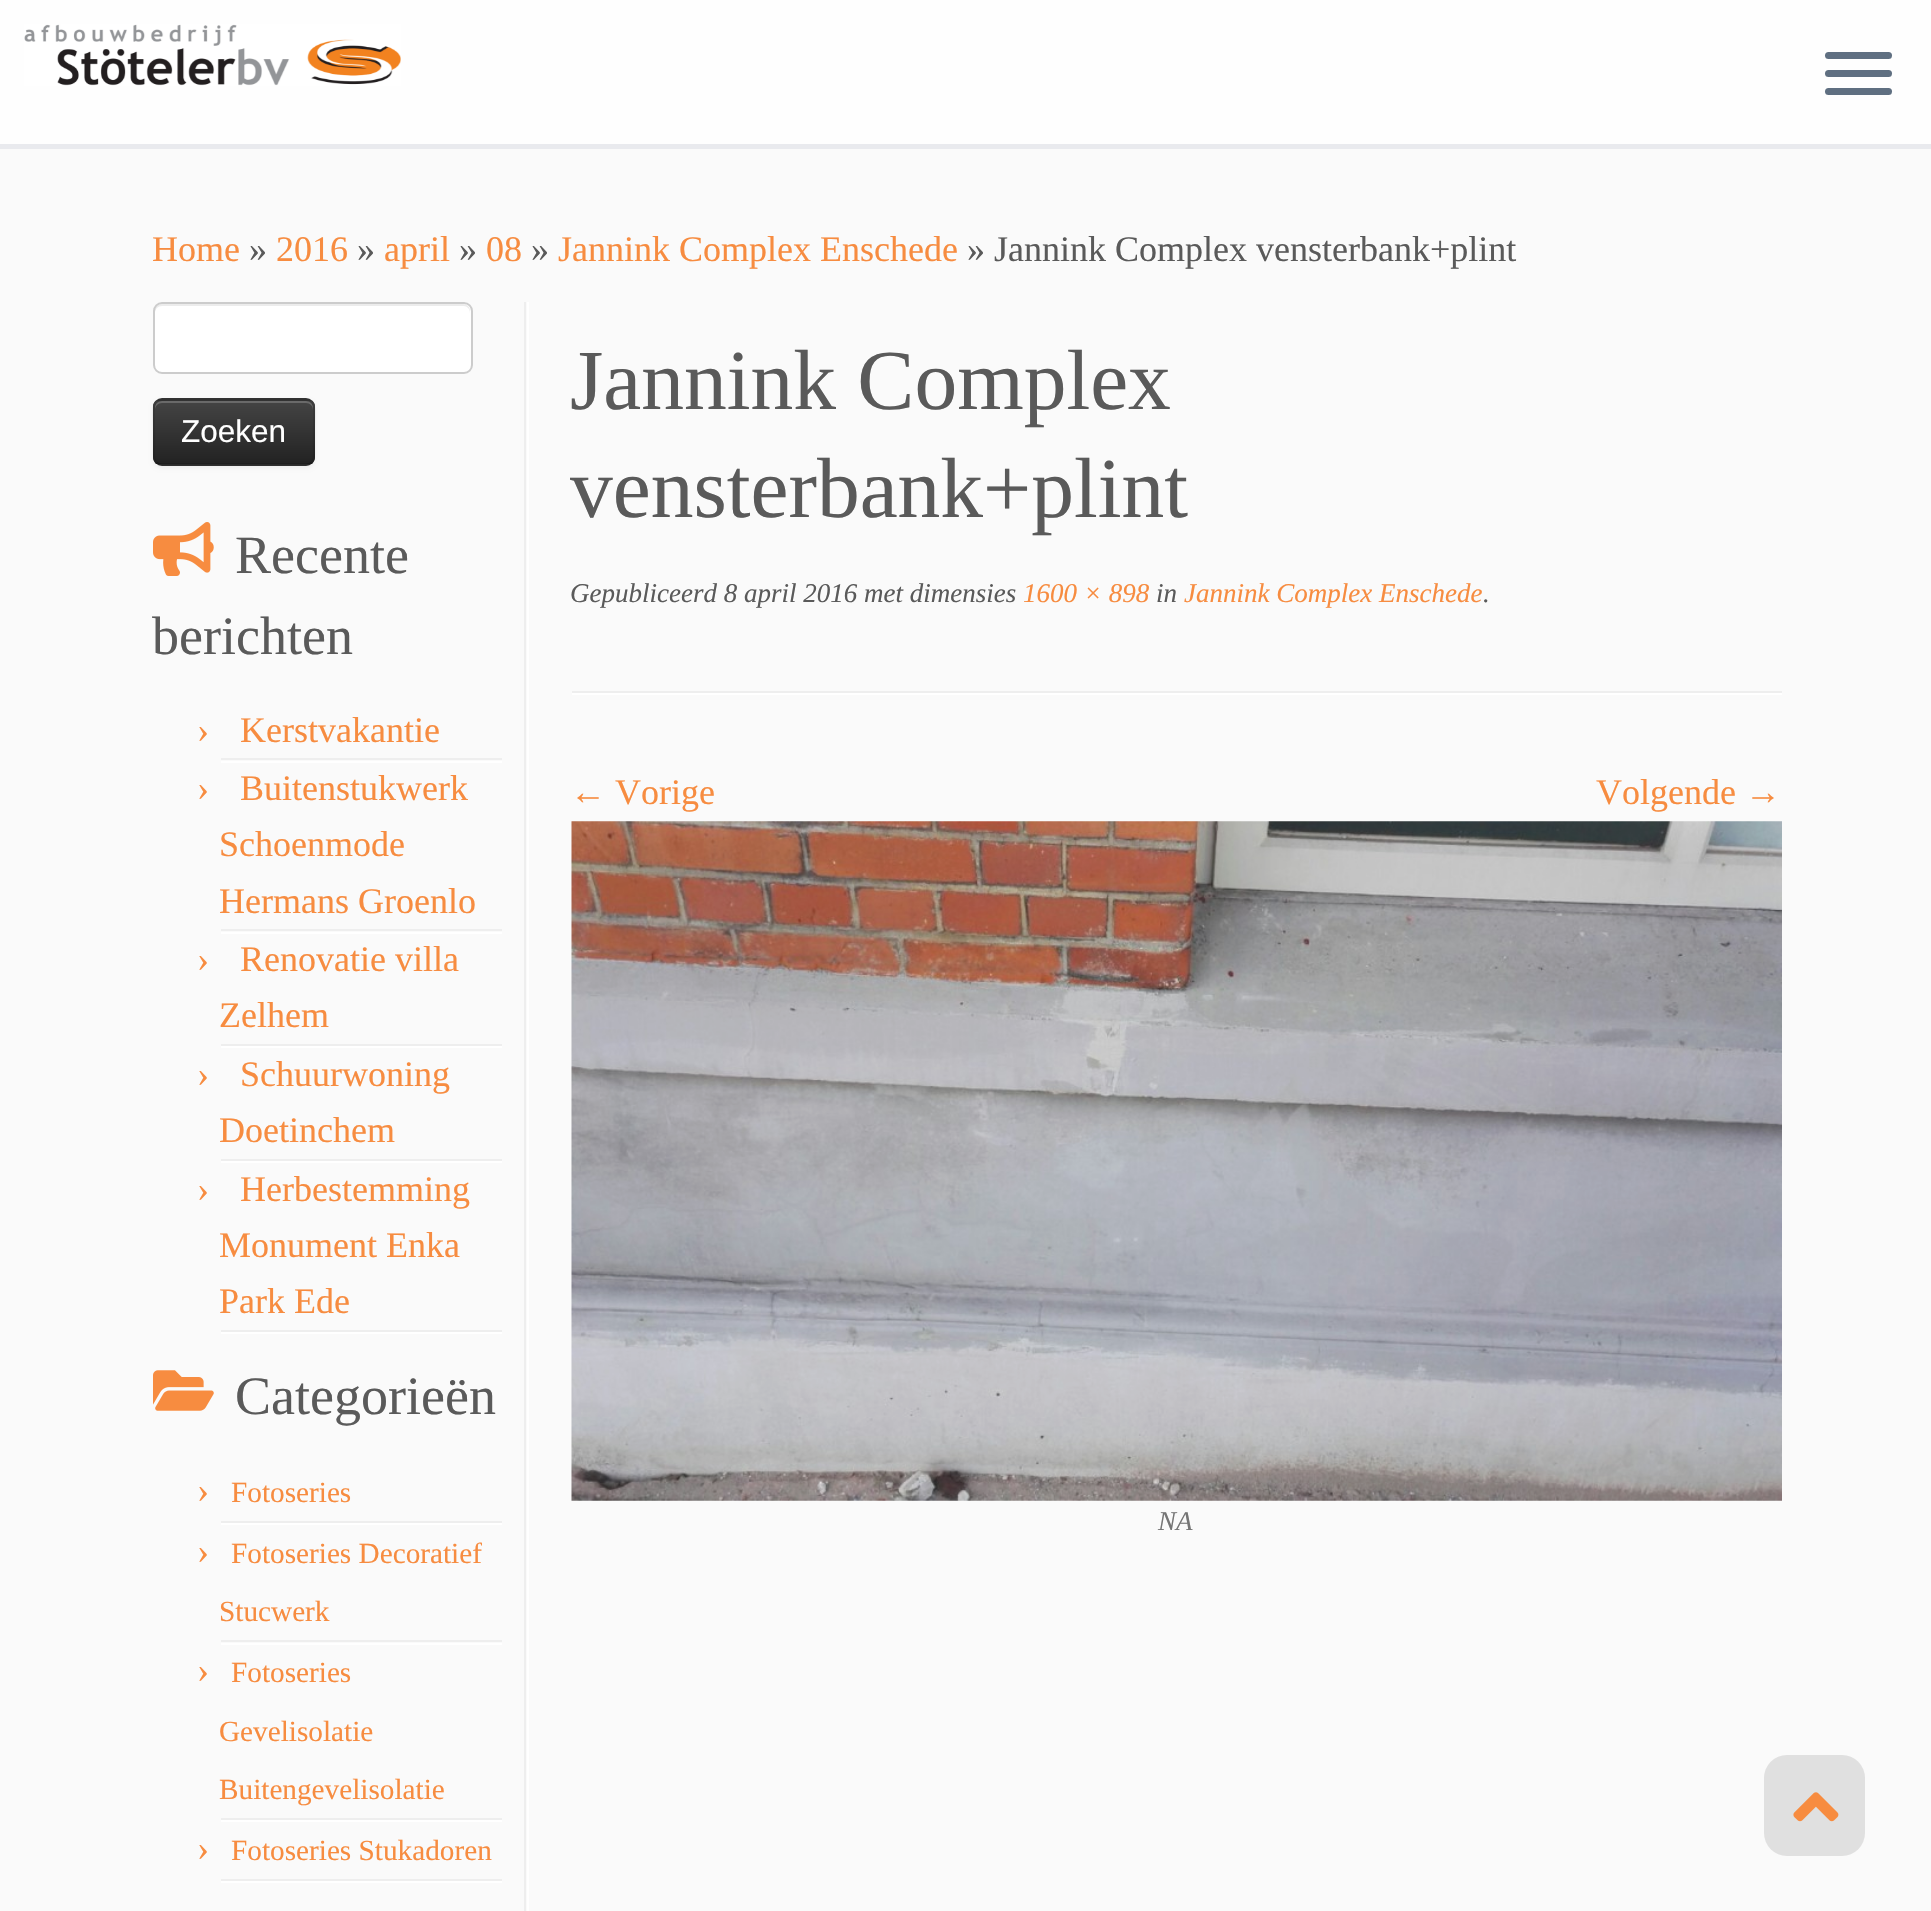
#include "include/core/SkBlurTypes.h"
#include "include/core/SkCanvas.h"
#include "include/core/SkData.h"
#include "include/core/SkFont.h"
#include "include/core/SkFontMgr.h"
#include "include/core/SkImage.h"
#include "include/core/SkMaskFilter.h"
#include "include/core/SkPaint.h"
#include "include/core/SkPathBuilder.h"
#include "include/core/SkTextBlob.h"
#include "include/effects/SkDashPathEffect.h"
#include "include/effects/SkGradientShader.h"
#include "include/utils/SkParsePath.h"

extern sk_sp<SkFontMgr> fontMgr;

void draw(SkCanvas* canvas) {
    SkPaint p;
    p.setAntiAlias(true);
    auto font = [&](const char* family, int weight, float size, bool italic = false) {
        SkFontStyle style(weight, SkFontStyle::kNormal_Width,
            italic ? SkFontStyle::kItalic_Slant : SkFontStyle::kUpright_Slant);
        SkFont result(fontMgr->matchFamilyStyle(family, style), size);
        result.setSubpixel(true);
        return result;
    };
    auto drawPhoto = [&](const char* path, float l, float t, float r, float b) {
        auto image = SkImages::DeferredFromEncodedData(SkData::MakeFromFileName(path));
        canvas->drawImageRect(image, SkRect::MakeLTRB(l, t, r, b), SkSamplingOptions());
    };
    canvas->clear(0xFFFAFAFA);
    p.setColor(0xFFFEFEFE);
    canvas->drawRect(SkRect::MakeLTRB(0, 0, 1931, 144), p);
    p.setColor(0xFFE9EAEE);
    canvas->drawRect(SkRect::MakeLTRB(0, 144, 1931, 149), p);
    drawPhoto("media/1.png", 24, 24, 401, 86);
    p.setColor(0xFF5F6F81);
    canvas->drawRoundRect(SkRect::MakeLTRB(1825, 52, 1892, 59), 3.5f, 3.5f, p);
    canvas->drawRoundRect(SkRect::MakeLTRB(1825, 70, 1892, 77), 3.5f, 3.5f, p);
    canvas->drawRoundRect(SkRect::MakeLTRB(1825, 88, 1892, 95), 3.5f, 3.5f, p);
    auto font1 = font("Liberation Serif", 400, 36);
    p.setColor(0xFFF78C40);
    canvas->drawString("Home", 152, 261, font1, p);
    p.setColor(0xFF5A5A5A);
    canvas->drawString("»", 249, 261, font1, p);
    p.setColor(0xFFF78C40);
    canvas->drawString("2016", 276, 261, font1, p);
    p.setColor(0xFF5A5A5A);
    canvas->drawString("»", 357, 261, font1, p);
    p.setColor(0xFFF78C40);
    canvas->drawString("april", 384, 261, font1, p);
    p.setColor(0xFF5A5A5A);
    canvas->drawString("»", 459, 261, font1, p);
    p.setColor(0xFFF78C40);
    canvas->drawString("08", 486, 261, font1, p);
    p.setColor(0xFF5A5A5A);
    canvas->drawString("»", 531, 261, font1, p);
    p.setColor(0xFFF78C40);
    canvas->drawString("Jannink Complex Enschede", 558, 261, font1, p);
    p.setColor(0xFF5A5A5A);
    canvas->drawString("» Jannink Complex vensterbank+plint", 967, 261, font1, p);
    p.setColor(0xFFEEEEEE);
    canvas->drawRect(SkRect::MakeLTRB(524, 302, 526, 1911), p);
    p.setColor(0xFFFFFFFF);
    canvas->drawRoundRect(SkRect::MakeLTRB(153, 302, 473, 374), 9, 9, p);
    p.setColor(0xFFECECEC);
    canvas->drawPath(SkPathBuilder().moveTo(162, 306).lineTo(464, 306).cubicTo(467, 306, 470, 309, 470, 313).lineTo(470, 311).cubicTo(470, 307, 467, 304, 463, 304).lineTo(162, 304).cubicTo(158, 304, 155, 307, 155, 311).lineTo(155, 313).cubicTo(155, 309, 158, 306, 162, 306).close().detach(), p);
    p.setStyle(SkPaint::kStroke_Style);
    p.setStrokeWidth(2);
    p.setColor(0xFFCCCCCC);
    canvas->drawRoundRect(SkRect::MakeLTRB(154, 303, 472, 373), 8, 8, p);
    p.setStyle(SkPaint::kFill_Style);
    p.setColor(0x0D000000);
    p.setMaskFilter(SkMaskFilter::MakeBlur(kNormal_SkBlurStyle, 2));
    canvas->drawRoundRect(SkRect::MakeLTRB(153, 401, 315, 468), 9, 9, p);
    p.setMaskFilter(nullptr);
    p.setColor(0xFF363636);
    canvas->drawRoundRect(SkRect::MakeLTRB(153, 398, 315, 466), 9, 9, p);
    canvas->save();
    canvas->clipPath(SkPathBuilder().moveTo(162, 398).lineTo(306, 398).cubicTo(311, 398, 315, 402, 315, 407).lineTo(315, 457).cubicTo(315, 462, 311, 466, 306, 466).lineTo(162, 466).cubicTo(157, 466, 153, 462, 153, 457).lineTo(153, 407).cubicTo(153, 402, 157, 398, 162, 398).close().detach(), true);
    {
        const SkColor colors[] = {0xFF444444, 0xFF222222};
        const float stops[] = {0, 1};
        const SkPoint ends[] = {{234, 401}, {234, 464}};
        p.setShader(SkGradientShader::MakeLinear(ends, colors, stops, 2, SkTileMode::kClamp));
        p.setAlpha(255);
    }
    canvas->drawRect(SkRect::MakeLTRB(153, 401, 315, 464), p);
    canvas->restore();
    p.setShader(nullptr);
    p.setColor(0x33FFFFFF);
    canvas->drawPath(SkPathBuilder().moveTo(162, 403).lineTo(306, 403).cubicTo(310, 403, 313, 406, 313, 410).lineTo(313, 408).cubicTo(313, 404, 310, 401, 306, 401).lineTo(162, 401).cubicTo(158, 401, 155, 404, 155, 408).lineTo(155, 410).cubicTo(155, 406, 158, 403, 162, 403).close().detach(), p);
    p.setStyle(SkPaint::kStroke_Style);
    p.setStrokeWidth(2.2f);
    p.setColor(0x40000000);
    canvas->drawPath(SkPathBuilder().moveTo(311.5f, 462.5f).cubicTo(310, 464, 308, 464.5f, 306, 464.5f).lineTo(162, 464.5f).cubicTo(160, 464.5f, 158, 464, 156.5f, 462.5f).detach(), p);
    p.setColor(0x1A000000);
    canvas->drawPath(SkPathBuilder().moveTo(156.5f, 462.5f).cubicTo(153, 459, 154, 453, 154, 448.5f).lineTo(154, 432).cubicTo(154, 395.5f, 148.5f, 399.5f, 186, 399.5f).lineTo(282, 399.5f).cubicTo(319.5f, 399.5f, 314, 395.5f, 314, 432).lineTo(314, 448.5f).cubicTo(314, 453, 315, 459, 311.5f, 462.5f).detach(), p);
    auto font2 = font("Liberation Sans", 400, 31.5f);
    p.setStyle(SkPaint::kFill_Style);
    p.setColor(0xFFFFFFFF);
    canvas->drawString("Zoeken", 181, 442, font2, p);
    canvas->drawRect(SkRect::MakeLTRB(527, 302, 529, 1911), p);
    drawPhoto("media/2.png", 153, 522, 214, 576);
    auto font3 = font("Liberation Serif", 400, 54);
    p.setColor(0xFF5A5A5A);
    canvas->drawString("Recente", 235, 573, font3, p);
    canvas->drawString("berichten", 152, 654, font3, p);
    p.setColor(0xFFEEEEEE);
    canvas->drawRect(SkRect::MakeLTRB(221, 758, 502, 760), p);
    p.setColor(0xFFF78C40);
    canvas->drawString("›", 197, 742, font1, p);
    canvas->drawString("Kerstvakantie", 240, 742, font1, p);
    p.setColor(0xFFFFFFFF);
    canvas->drawRect(SkRect::MakeLTRB(221, 761, 502, 763), p);
    p.setColor(0xFFEEEEEE);
    canvas->drawRect(SkRect::MakeLTRB(221, 929, 502, 931), p);
    p.setColor(0xFFF78C40);
    {
        const struct { const char* s; float x, y; } items[] = {
            {"›", 197, 800},
            {"Buitenstukwerk", 240, 800},
            {"Schoenmode", 219, 856},
            {"Hermans Groenlo", 219, 913},
        };
        for (auto [s, x, y] : items) {
            canvas->drawString(s, x, y, font1, p);
        }
    }
    p.setColor(0xFFFFFFFF);
    canvas->drawRect(SkRect::MakeLTRB(221, 932, 502, 934), p);
    p.setColor(0xFFEEEEEE);
    canvas->drawRect(SkRect::MakeLTRB(221, 1044, 502, 1046), p);
    p.setColor(0xFFF78C40);
    {
        const struct { const char* s; float x, y; } items[] = {
            {"›", 197, 971},
            {"Renovatie villa", 240, 971},
            {"Zelhem", 219, 1027},
        };
        for (auto [s, x, y] : items) {
            canvas->drawString(s, x, y, font1, p);
        }
    }
    p.setColor(0xFFFFFFFF);
    canvas->drawRect(SkRect::MakeLTRB(221, 1046, 502, 1048), p);
    p.setColor(0xFFEEEEEE);
    canvas->drawRect(SkRect::MakeLTRB(221, 1159, 502, 1161), p);
    p.setColor(0xFFF78C40);
    {
        const struct { const char* s; float x, y; } items[] = {
            {"›", 197, 1086},
            {"Schuurwoning", 240, 1086},
            {"Doetinchem", 219, 1142},
        };
        for (auto [s, x, y] : items) {
            canvas->drawString(s, x, y, font1, p);
        }
    }
    p.setColor(0xFFFFFFFF);
    canvas->drawRect(SkRect::MakeLTRB(221, 1161, 502, 1163), p);
    p.setColor(0xFFEEEEEE);
    canvas->drawRect(SkRect::MakeLTRB(221, 1330, 502, 1332), p);
    p.setColor(0xFFF78C40);
    {
        const struct { const char* s; float x, y; } items[] = {
            {"›", 197, 1201},
            {"Herbestemming", 240, 1201},
            {"Monument Enka", 219, 1257},
            {"Park Ede", 219, 1313},
        };
        for (auto [s, x, y] : items) {
            canvas->drawString(s, x, y, font1, p);
        }
    }
    p.setColor(0xFFFFFFFF);
    canvas->drawRect(SkRect::MakeLTRB(221, 1332, 502, 1334), p);
    drawPhoto("media/3.png", 153, 1370, 214, 1411);
    p.setColor(0xFF5A5A5A);
    canvas->drawString("Categorieën", 235, 1414, font3, p);
    p.setColor(0xFFEEEEEE);
    canvas->drawRect(SkRect::MakeLTRB(221, 1521, 502, 1523), p);
    p.setColor(0xFFF78C40);
    canvas->drawString("›", 197, 1502, font1, p);
    auto font4 = font("Liberation Serif", 400, 29.25f);
    canvas->drawString("Fotoseries", 231, 1502, font4, p);
    p.setColor(0xFFFFFFFF);
    canvas->drawRect(SkRect::MakeLTRB(221, 1523, 502, 1525), p);
    p.setColor(0xFFEEEEEE);
    canvas->drawRect(SkRect::MakeLTRB(221, 1640, 502, 1642), p);
    p.setColor(0xFFF78C40);
    canvas->drawString("›", 197, 1563, font1, p);
    canvas->drawString("Fotoseries Decoratief", 231, 1563, font4, p);
    canvas->drawString("Stucwerk", 219, 1621, font4, p);
    p.setColor(0xFFFFFFFF);
    canvas->drawRect(SkRect::MakeLTRB(221, 1643, 502, 1645), p);
    p.setColor(0xFFEEEEEE);
    canvas->drawRect(SkRect::MakeLTRB(221, 1818, 502, 1820), p);
    p.setColor(0xFFF78C40);
    canvas->drawString("›", 197, 1682, font1, p);
    {
        const struct { const char* s; float x, y; } items[] = {
            {"Fotoseries", 231, 1682},
            {"Gevelisolatie", 219, 1741},
            {"Buitengevelisolatie", 219, 1799},
        };
        for (auto [s, x, y] : items) {
            canvas->drawString(s, x, y, font4, p);
        }
    }
    p.setColor(0xFFFFFFFF);
    canvas->drawRect(SkRect::MakeLTRB(221, 1820, 502, 1822), p);
    p.setColor(0xFFEEEEEE);
    canvas->drawRect(SkRect::MakeLTRB(221, 1879, 502, 1881), p);
    p.setColor(0xFFF78C40);
    canvas->drawString("›", 197, 1860, font1, p);
    canvas->drawString("Fotoseries Stukadoren", 231, 1860, font4, p);
    p.setColor(0xFFFFFFFF);
    canvas->drawRect(SkRect::MakeLTRB(221, 1881, 502, 1883), p);
    auto font5 = font("Liberation Serif", 400, 85.5f);
    p.setColor(0xFF5A5A5A);
    canvas->drawString("Jannink Complex", 570, 409, font5, p);
    canvas->drawString("vensterbank+plint", 570, 517, font5, p);
    auto font6 = font("Liberation Serif", 400, 27, true);
    canvas->drawString("Gepubliceerd 8 april 2016 met dimensies", 570, 602, font6, p);
    p.setColor(0xFFF78C40);
    canvas->drawString("1600 × 898", 1023, 602, font6, p);
    p.setColor(0xFF5A5A5A);
    canvas->drawString("in", 1156, 602, font6, p);
    p.setColor(0xFFF78C40);
    canvas->drawString("Jannink Complex Enschede", 1184, 602, font6, p);
    p.setColor(0xFF5A5A5A);
    canvas->drawString(".", 1483, 602, font6, p);
    p.setColor(0xFFEEEEEE);
    canvas->drawRect(SkRect::MakeLTRB(572, 691, 1782, 693), p);
    p.setColor(0xFFFFFFFF);
    canvas->drawRect(SkRect::MakeLTRB(572, 693, 1782, 695), p);
    p.setColor(0xFFF78C40);
    canvas->drawString("← Vorige", 570, 804, font1, p);
    canvas->drawString("Volgende →", 1596, 804, font1, p);
    drawPhoto("media/4.png", 571, 821, 1782, 1501);
    p.setColor(0xFF757575);
    canvas->drawString("NA", 1158, 1530, font6, p);
    p.setColor(0xFFE0E0E0);
    canvas->drawRoundRect(SkRect::MakeLTRB(1764, 1755, 1865, 1856), 23, 23, p);
    drawPhoto("media/5.png", 1793, 1792, 1839, 1822);
}
